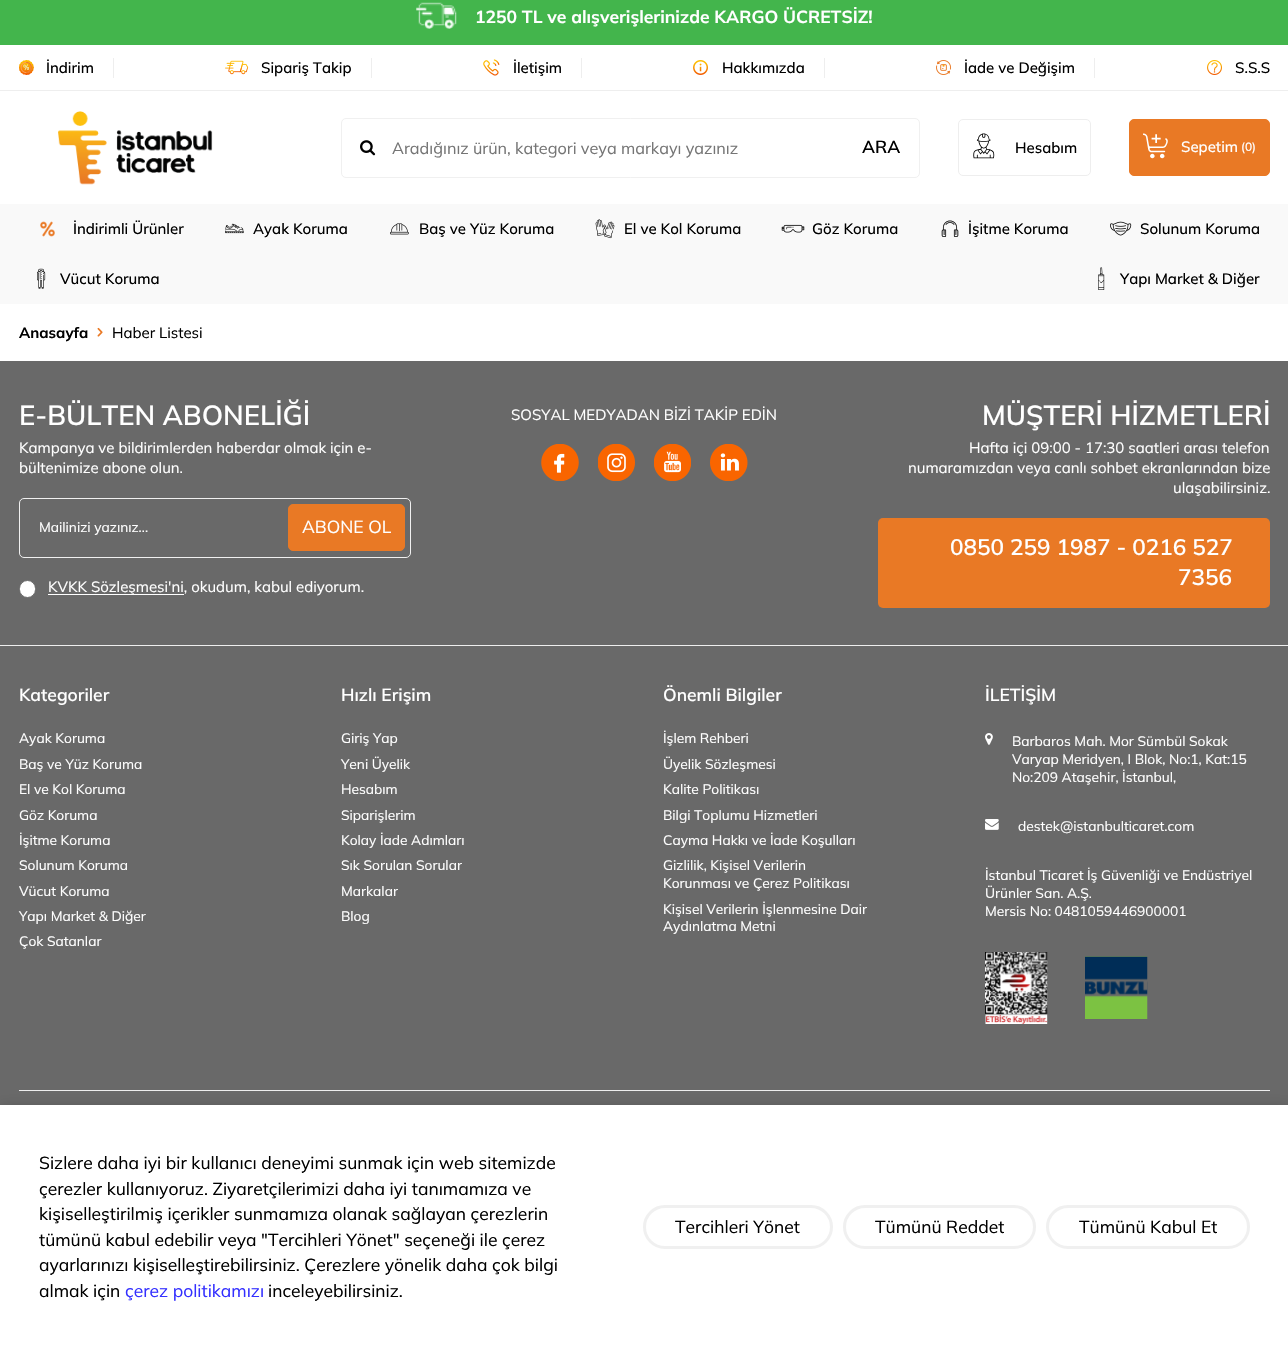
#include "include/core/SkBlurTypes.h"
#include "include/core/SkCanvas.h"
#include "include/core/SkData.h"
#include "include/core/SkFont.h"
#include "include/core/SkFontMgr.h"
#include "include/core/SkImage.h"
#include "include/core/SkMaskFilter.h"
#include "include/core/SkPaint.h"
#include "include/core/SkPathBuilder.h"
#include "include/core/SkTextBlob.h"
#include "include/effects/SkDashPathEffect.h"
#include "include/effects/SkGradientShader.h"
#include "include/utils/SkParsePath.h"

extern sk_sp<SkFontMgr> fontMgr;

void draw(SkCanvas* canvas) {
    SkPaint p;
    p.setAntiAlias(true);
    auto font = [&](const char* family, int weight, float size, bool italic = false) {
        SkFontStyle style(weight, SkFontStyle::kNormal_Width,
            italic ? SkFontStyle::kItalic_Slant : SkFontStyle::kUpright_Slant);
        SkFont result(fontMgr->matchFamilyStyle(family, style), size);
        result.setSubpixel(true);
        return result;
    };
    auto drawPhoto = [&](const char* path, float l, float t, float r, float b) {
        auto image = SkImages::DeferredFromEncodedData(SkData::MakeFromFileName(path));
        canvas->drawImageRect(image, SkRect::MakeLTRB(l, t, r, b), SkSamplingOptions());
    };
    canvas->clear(0xFFFFFFFF);
    p.setColor(0xFF43B54C);
    canvas->drawRect(SkRect::MakeLTRB(0, 0, 1288, 45), p);
    drawPhoto("media/1.png", 416, 2, 457, 29);
    auto font1 = font("Mulish", 700, 17.5f);
    p.setColor(0xFFFFFFFF);
    canvas->drawString("1250 TL ve alışverişlerinizde KARGO ÜCRETSİZ!", 475, 23, font1, p);
    p.setColor(0xFFEEEEEE);
    canvas->drawRect(SkRect::MakeLTRB(0, 90, 1288, 91), p);
    canvas->drawRect(SkRect::MakeLTRB(113, 58, 114, 78), p);
    drawPhoto("media/2.png", 19, 60, 34, 75);
    auto font2 = font("Mulish", 500, 15);
    p.setColor(0xFF000000);
    canvas->drawString("İndirim", 46, 73, font2, p);
    p.setColor(0xFFEEEEEE);
    canvas->drawRect(SkRect::MakeLTRB(371, 58, 372, 78), p);
    drawPhoto("media/3.png", 225, 60, 249, 75);
    p.setColor(0xFF000000);
    canvas->drawString("Sipariş Takip", 261, 73, font2, p);
    p.setColor(0xFFEEEEEE);
    canvas->drawRect(SkRect::MakeLTRB(581, 58, 582, 78), p);
    drawPhoto("media/4.png", 483, 59, 500, 76);
    p.setColor(0xFF000000);
    canvas->drawString("İletişim", 513, 73, font2, p);
    p.setColor(0xFFEEEEEE);
    canvas->drawRect(SkRect::MakeLTRB(824, 58, 825, 78), p);
    drawPhoto("media/5.png", 693, 60, 708, 75);
    p.setColor(0xFF000000);
    canvas->drawString("Hakkımızda", 722, 73, font2, p);
    p.setColor(0xFFEEEEEE);
    canvas->drawRect(SkRect::MakeLTRB(1094, 58, 1095, 78), p);
    drawPhoto("media/6.png", 936, 60, 951, 75);
    p.setColor(0xFF000000);
    canvas->drawString("İade ve Değişim", 964, 73, font2, p);
    drawPhoto("media/7.png", 1207, 60, 1222, 75);
    canvas->drawString("S.S.S", 1235, 73, font2, p);
    drawPhoto("media/8.png", 58, 111, 213, 185);
    p.setStyle(SkPaint::kStroke_Style);
    p.setStrokeWidth(1);
    p.setColor(0xFFF0F0F0);
    canvas->drawRoundRect(SkRect::MakeLTRB(341.5f, 118.5f, 919.5f, 177.5f), 4.5f, 4.5f, p);
    drawPhoto("media/9.png", 360, 140, 376, 156);
    auto font3 = font("Mulish", 400, 16.25f);
    p.setStyle(SkPaint::kFill_Style);
    p.setColor(0xFF757575);
    canvas->drawString("Aradığınız ürün, kategori veya markayı yazınız", 392, 154, font3, p);
    auto font4 = font("Mulish", 600, 17.5f);
    p.setColor(0xFF000000);
    canvas->drawString("ARA", 862, 153, font4, p);
    p.setStyle(SkPaint::kStroke_Style);
    p.setColor(0xFFEEEEEE);
    canvas->drawRoundRect(SkRect::MakeLTRB(958.5f, 119.5f, 1090.5f, 175.5f), 4.5f, 4.5f, p);
    drawPhoto("media/10.png", 973, 133, 995, 159);
    p.setStyle(SkPaint::kFill_Style);
    p.setColor(0xFF000000);
    canvas->drawString("Hesabım", 1015, 153, font2, p);
    p.setColor(0xFFE97925);
    canvas->drawRoundRect(SkRect::MakeLTRB(1129.5f, 119.5f, 1269.5f, 175.5f), 4.5f, 4.5f, p);
    p.setStyle(SkPaint::kStroke_Style);
    canvas->drawRoundRect(SkRect::MakeLTRB(1129.5f, 119.5f, 1269.5f, 175.5f), 4.5f, 4.5f, p);
    drawPhoto("media/11.png", 1143, 133, 1168, 159);
    p.setStyle(SkPaint::kFill_Style);
    p.setColor(0xFFFFFFFF);
    canvas->drawString("Sepetim", 1181, 152, font2, p);
    auto font5 = font("Mulish", 500, 12);
    canvas->drawString("(0)", 1241, 151, font5, p);
    p.setColor(0xFFF9F9F9);
    canvas->drawRect(SkRect::MakeLTRB(0, 204, 1288, 304), p);
    drawPhoto("media/12.png", 40, 221, 55, 237);
    p.setColor(0xFF000000);
    canvas->drawString("İndirimli Ürünler", 73, 234, font2, p);
    drawPhoto("media/13.png", 225, 223, 244, 234);
    canvas->drawString("Ayak Koruma", 253, 234, font2, p);
    drawPhoto("media/14.png", 390, 223, 409, 235);
    canvas->drawString("Baş ve Yüz Koruma", 419, 234, font2, p);
    drawPhoto("media/15.png", 595, 219, 615, 239);
    canvas->drawString("El ve Kol Koruma", 624, 234, font2, p);
    drawPhoto("media/16.png", 781, 224, 805, 233);
    canvas->drawString("Göz Koruma", 812, 234, font2, p);
    drawPhoto("media/17.png", 941, 220, 959, 237);
    canvas->drawString("İşitme Koruma", 968, 234, font2, p);
    drawPhoto("media/18.png", 1110, 221, 1132, 236);
    canvas->drawString("Solunum Koruma", 1140, 234, font2, p);
    drawPhoto("media/19.png", 37, 268, 46, 289);
    canvas->drawString("Vücut Koruma", 60, 284, font2, p);
    drawPhoto("media/20.png", 1098, 267, 1105, 290);
    canvas->drawString("Yapı Market & Diğer", 1120, 284, font2, p);
    auto font6 = font("Mulish", 700, 15);
    canvas->drawString("Anasayfa", 19, 338, font6, p);
    drawPhoto("media/21.png", 97, 327, 103, 337);
    auto font7 = font("Mulish", 400, 15);
    canvas->drawString("Haber Listesi", 112, 338, font7, p);
    p.setColor(0xFF696969);
    canvas->drawRect(SkRect::MakeLTRB(0, 361, 1288, 1105), p);
    p.setColor(0xFFEEEEEE);
    canvas->drawRect(SkRect::MakeLTRB(0, 645, 1288, 646), p);
    auto font8 = font("Mulish", 600, 27.5f);
    p.setColor(0xFFFFFFFF);
    canvas->drawString("E-BÜLTEN ABONELİĞİ", 19, 425, font8, p);
    canvas->drawString("Kampanya ve bildirimlerden haberdar olmak için e-", 19, 453, font7, p);
    canvas->drawString("bültenimize abone olun.", 19, 473, font7, p);
    p.setStyle(SkPaint::kStroke_Style);
    p.setColor(0xFFF0F0F0);
    canvas->drawRoundRect(SkRect::MakeLTRB(19.5f, 498.5f, 410.5f, 557.5f), 4.5f, 4.5f, p);
    auto font9 = font("Mulish", 400, 13.75f);
    p.setStyle(SkPaint::kFill_Style);
    p.setColor(0xFFFFFFFF);
    canvas->drawString("Mailinizi yazınız...", 39, 532, font9, p);
    p.setColor(0xFFE97925);
    canvas->drawRoundRect(SkRect::MakeLTRB(288.5f, 504.5f, 404.5f, 550.5f), 4.5f, 4.5f, p);
    p.setStyle(SkPaint::kStroke_Style);
    canvas->drawRoundRect(SkRect::MakeLTRB(288.5f, 504.5f, 404.5f, 550.5f), 4.5f, 4.5f, p);
    auto font10 = font("Mulish", 400, 17.5f);
    p.setStyle(SkPaint::kFill_Style);
    p.setColor(0xFFFFFFFF);
    canvas->drawString("ABONE OL", 302, 533, font10, p);
    canvas->drawRoundRect(SkRect::MakeLTRB(19.5f, 580.5f, 35.5f, 597.5f), 8, 8, p);
    p.setStyle(SkPaint::kStroke_Style);
    p.setColor(0xFF696969);
    canvas->drawRoundRect(SkRect::MakeLTRB(19.5f, 580.5f, 35.5f, 597.5f), 8, 8, p);
    p.setStyle(SkPaint::kFill_Style);
    p.setColor(0xFFFFFFFF);
    canvas->drawRect(SkRect::MakeLTRB(48, 594, 184, 595), p);
    canvas->drawString("KVKK Sözleşmesi'ni, okudum, kabul ediyorum.", 48, 592, font7, p);
    canvas->drawString("SOSYAL MEDYADAN BİZİ TAKİP EDİN", 511, 420, font7, p);
    drawPhoto("media/22.png", 541, 444, 579, 481);
    drawPhoto("media/23.png", 598, 444, 635, 481);
    drawPhoto("media/24.png", 654, 444, 691, 481);
    drawPhoto("media/25.png", 710, 444, 748, 481);
    canvas->drawString("MÜŞTERİ HİZMETLERİ", 982, 425, font8, p);
    {
        const struct { const char* s; float x, y; } items[] = {
            {"Hafta içi 09:00 - 17:30 saatleri arası telefon", 969, 453},
            {"numaramızdan veya canlı sohbet ekranlarından bize", 908, 473},
            {"ulaşabilirsiniz.", 1173, 493},
        };
        for (auto [s, x, y] : items) {
            canvas->drawString(s, x, y, font7, p);
        }
    }
    p.setColor(0xFFE97925);
    canvas->drawRoundRect(SkRect::MakeLTRB(878, 518, 1270, 608), 5, 5, p);
    auto font11 = font("Mulish", 600, 22.5f);
    p.setColor(0xFFFFFFFF);
    canvas->drawString("0850 259 1987 - 0216 527", 950, 555, font11, p);
    canvas->drawString("7356", 1178, 585, font11, p);
    p.setColor(0xFFEEEEEE);
    canvas->drawRect(SkRect::MakeLTRB(19, 1090, 1270, 1091), p);
    p.setColor(0xFFFFFFFF);
    canvas->drawString("Kategoriler", 19, 701, font4, p);
    {
        const struct { const char* s; float x, y; } items[] = {
            {"Ayak Koruma", 19, 743},
            {"Baş ve Yüz Koruma", 19, 769},
            {"El ve Kol Koruma", 19, 794},
            {"Göz Koruma", 19, 820},
            {"İşitme Koruma", 19, 845},
            {"Solunum Koruma", 19, 870},
            {"Vücut Koruma", 19, 896},
            {"Yapı Market & Diğer", 19, 921},
            {"Çok Satanlar", 19, 946},
        };
        for (auto [s, x, y] : items) {
            canvas->drawString(s, x, y, font9, p);
        }
    }
    canvas->drawString("Hızlı Erişim", 341, 701, font4, p);
    {
        const struct { const char* s; float x, y; } items[] = {
            {"Giriş Yap", 341, 743},
            {"Yeni Üyelik", 341, 769},
            {"Hesabım", 341, 794},
            {"Siparişlerim", 341, 820},
            {"Kolay İade Adımları", 341, 845},
            {"Sık Sorulan Sorular", 341, 870},
            {"Markalar", 341, 896},
            {"Blog", 341, 921},
        };
        for (auto [s, x, y] : items) {
            canvas->drawString(s, x, y, font9, p);
        }
    }
    canvas->drawString("Önemli Bilgiler", 663, 701, font4, p);
    {
        const struct { const char* s; float x, y; } items[] = {
            {"İşlem Rehberi", 663, 743},
            {"Üyelik Sözleşmesi", 663, 769},
            {"Kalite Politikası", 663, 794},
            {"Bilgi Toplumu Hizmetleri", 663, 820},
            {"Cayma Hakkı ve İade Koşulları", 663, 845},
            {"Gizlilik, Kişisel Verilerin", 663, 870},
            {"Korunması ve Çerez Politikası", 663, 888},
            {"Kişisel Verilerin İşlenmesine Dair", 663, 914},
            {"Aydınlatma Metni", 663, 931},
        };
        for (auto [s, x, y] : items) {
            canvas->drawString(s, x, y, font9, p);
        }
    }
    canvas->drawString("İLETİŞİM", 985, 701, font4, p);
    drawPhoto("media/26.png", 985, 733, 993, 745);
    {
        const struct { const char* s; float x, y; } items[] = {
            {"Barbaros Mah. Mor Sümbül Sokak", 1012, 746},
            {"Varyap Meridyen, I Blok, No:1, Kat:15", 1012, 764},
            {"No:209 Ataşehir, İstanbul,", 1012, 782},
        };
        for (auto [s, x, y] : items) {
            canvas->drawString(s, x, y, font9, p);
        }
    }
    drawPhoto("media/27.png", 985, 819, 999, 830);
    {
        const struct { const char* s; float x, y; } items[] = {
            {"destek@istanbulticaret.com", 1018, 831},
            {"İstanbul Ticaret İş Güvenliği ve Endüstriyel", 985, 880},
            {"Ürünler San. A.Ş.", 985, 898},
            {"Mersis No: 0481059446900001", 985, 916},
        };
        for (auto [s, x, y] : items) {
            canvas->drawString(s, x, y, font9, p);
        }
    }
    drawPhoto("media/28.png", 985, 952, 1048, 1024);
    drawPhoto("media/29.png", 1085, 956, 1148, 1019);
    p.setColor(0x26000000);
    p.setMaskFilter(SkMaskFilter::MakeBlur(kNormal_SkBlurStyle, 6));
    canvas->drawRect(SkRect::MakeLTRB(0, 1106, 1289, 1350), p);
    p.setMaskFilter(nullptr);
    p.setColor(0xFFFFFFFF);
    canvas->drawRect(SkRect::MakeLTRB(0, 1105, 1288, 1348), p);
    p.setColor(0xFF000000);
    {
        const struct { const char* s; float x, y; } items[] = {
            {"Sizlere daha iyi bir kullanıcı deneyimi sunmak için web sitemizde", 39, 1169},
            {"çerezler kullanıyoruz. Ziyaretçilerimizi daha iyi tanımamıza ve", 39, 1195},
            {"kişiselleştirilmiş içerikler sunmamıza olanak sağlayan çerezlerin", 39, 1220},
            {"tümünü kabul edebilir veya \"Tercihleri Yönet\" seçeneği ile çerez", 39, 1246},
            {"ayarlarınızı kişiselleştirebilirsiniz. Çerezlere yönelik daha çok bilgi", 39, 1271},
            {"almak için", 39, 1297},
        };
        for (auto [s, x, y] : items) {
            canvas->drawString(s, x, y, font10, p);
        }
    }
    p.setColor(0xFF3430FF);
    canvas->drawString("çerez politikamızı", 125, 1297, font10, p);
    p.setColor(0xFF000000);
    canvas->drawString("inceleyebilirsiniz.", 268, 1297, font10, p);
    p.setStyle(SkPaint::kStroke_Style);
    p.setStrokeWidth(3);
    p.setColor(0xFFF0F0F0);
    canvas->drawRoundRect(SkRect::MakeLTRB(644.5f, 1206.5f, 831.5f, 1247.5f), 20.5f, 20.5f, p);
    p.setStyle(SkPaint::kFill_Style);
    p.setColor(0xFF000000);
    canvas->drawString("Tercihleri Yönet", 675, 1233, font10, p);
    p.setStyle(SkPaint::kStroke_Style);
    p.setColor(0xFFF0F0F0);
    canvas->drawRoundRect(SkRect::MakeLTRB(844.5f, 1206.5f, 1034.5f, 1247.5f), 20.5f, 20.5f, p);
    p.setStyle(SkPaint::kFill_Style);
    p.setColor(0xFF000000);
    canvas->drawString("Tümünü Reddet", 875, 1233, font10, p);
    p.setStyle(SkPaint::kStroke_Style);
    p.setColor(0xFFF0F0F0);
    canvas->drawRoundRect(SkRect::MakeLTRB(1047.5f, 1206.5f, 1248.5f, 1247.5f), 20.5f, 20.5f, p);
    p.setStyle(SkPaint::kFill_Style);
    p.setColor(0xFF000000);
    canvas->drawString("Tümünü Kabul Et", 1079, 1233, font10, p);
}
